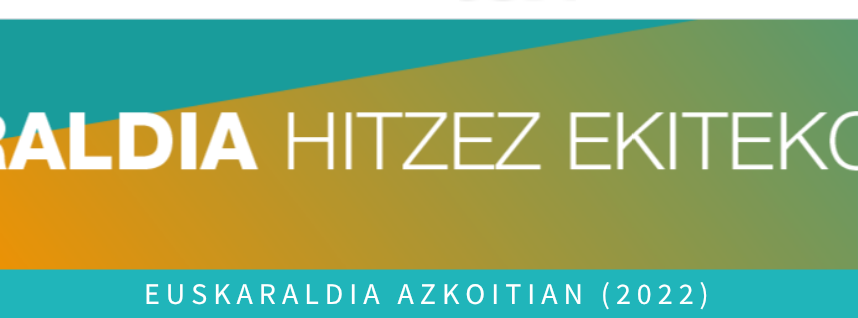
#include "include/core/SkBlurTypes.h"
#include "include/core/SkCanvas.h"
#include "include/core/SkData.h"
#include "include/core/SkFont.h"
#include "include/core/SkFontMgr.h"
#include "include/core/SkImage.h"
#include "include/core/SkMaskFilter.h"
#include "include/core/SkPaint.h"
#include "include/core/SkPathBuilder.h"
#include "include/core/SkTextBlob.h"
#include "include/effects/SkDashPathEffect.h"
#include "include/effects/SkGradientShader.h"
#include "include/utils/SkParsePath.h"

extern sk_sp<SkFontMgr> fontMgr;

void draw(SkCanvas* canvas) {
    SkPaint p;
    p.setAntiAlias(true);
    auto font = [&](const char* family, int weight, float size, bool italic = false) {
        SkFontStyle style(weight, SkFontStyle::kNormal_Width,
            italic ? SkFontStyle::kItalic_Slant : SkFontStyle::kUpright_Slant);
        SkFont result(fontMgr->matchFamilyStyle(family, style), size);
        result.setSubpixel(true);
        return result;
    };
    auto drawTracked = [&](const char* s, float x, float y, const SkFont& font, const SkPaint& ink, float letter, float word) {
        std::vector<SkGlyphID> glyphs(font.countText(s, strlen(s), SkTextEncoding::kUTF8));
        std::vector<float> xs(glyphs.size());
        font.textToGlyphs(s, strlen(s), SkTextEncoding::kUTF8, glyphs);
        font.getXPos(glyphs, xs, x);
        float extra = 0;
        for (size_t i = 0; i < glyphs.size(); i++) {
            xs[i] += extra;
            extra += letter + word * (glyphs[i] == font.unicharToGlyph(' '));
        }
        canvas->drawTextBlob(SkTextBlob::MakeFromPosHGlyphs(glyphs, xs, y, font), 0, 0, ink);
    };
    auto drawPhoto = [&](const char* path, float l, float t, float r, float b) {
        auto image = SkImages::DeferredFromEncodedData(SkData::MakeFromFileName(path));
        canvas->drawImageRect(image, SkRect::MakeLTRB(l, t, r, b), SkSamplingOptions());
    };
    canvas->clear(0xFFFFFFFF);
    drawPhoto("media/1.png", 459, 0, 576, 2);
    p.setColor(0xFFDEE2E6);
    canvas->drawRect(SkRect::MakeLTRB(0, 18, 858, 20), p);
    p.setColor(0xFF20B5BA);
    canvas->drawRect(SkRect::MakeLTRB(0, 20, 858, 318), p);
    drawPhoto("media/2.png", 0, 19, 858, 270);
    auto font1 = font("Source Sans Pro", 400, 30);
    p.setColor(0xFFFFFFFF);
    drawTracked("EUSKARALDIA AZKOITIAN (2022)", 144, 304, font1, p, 6, 0);
}
